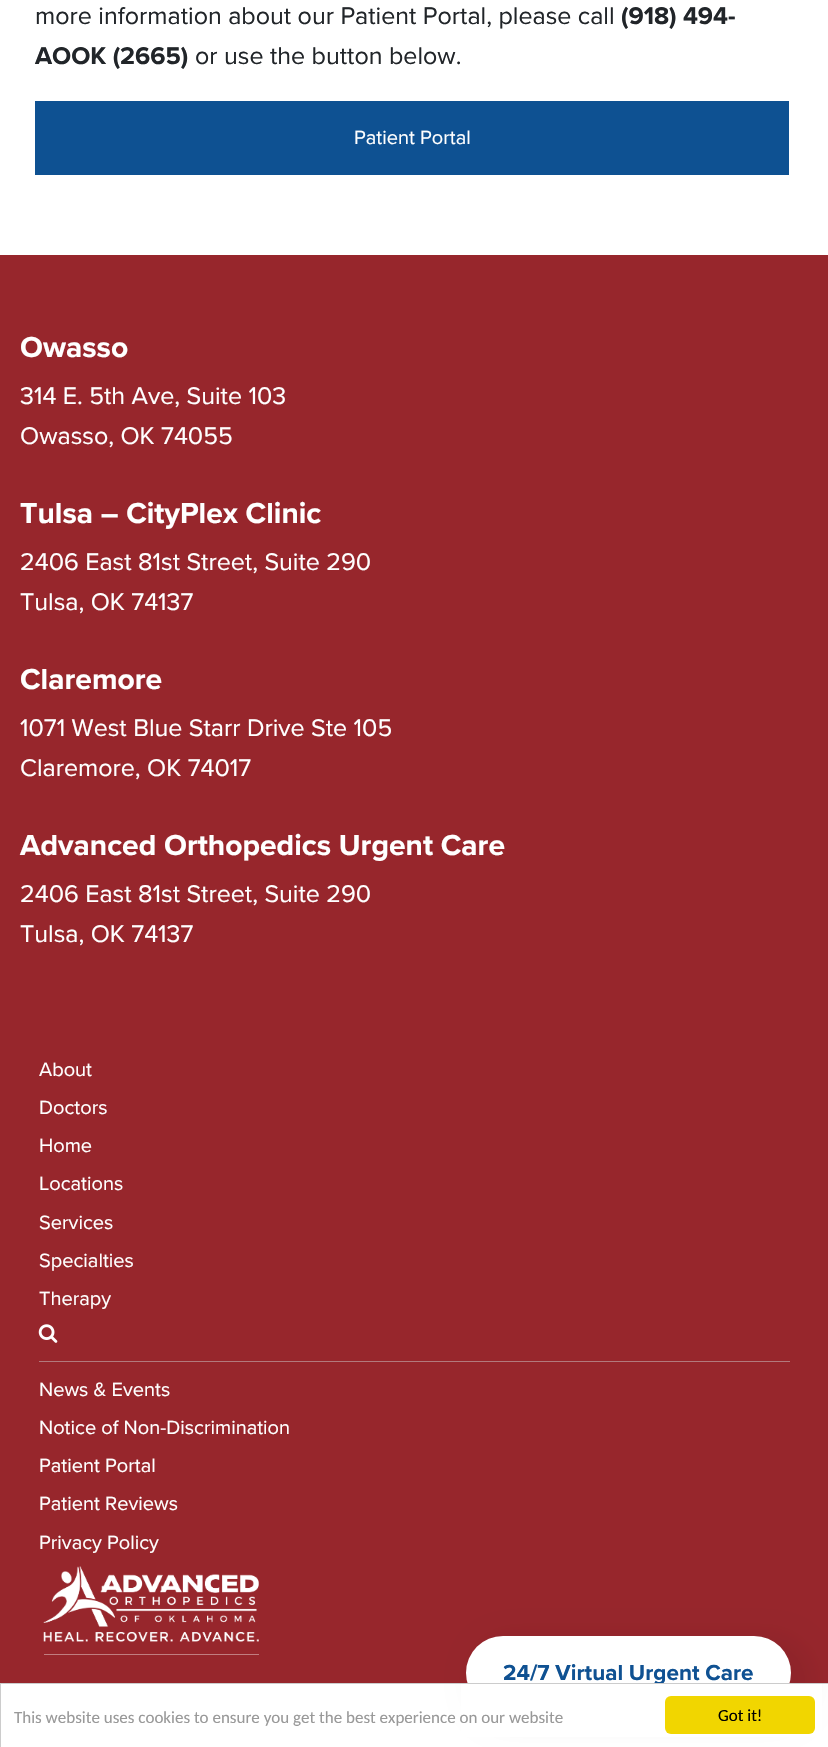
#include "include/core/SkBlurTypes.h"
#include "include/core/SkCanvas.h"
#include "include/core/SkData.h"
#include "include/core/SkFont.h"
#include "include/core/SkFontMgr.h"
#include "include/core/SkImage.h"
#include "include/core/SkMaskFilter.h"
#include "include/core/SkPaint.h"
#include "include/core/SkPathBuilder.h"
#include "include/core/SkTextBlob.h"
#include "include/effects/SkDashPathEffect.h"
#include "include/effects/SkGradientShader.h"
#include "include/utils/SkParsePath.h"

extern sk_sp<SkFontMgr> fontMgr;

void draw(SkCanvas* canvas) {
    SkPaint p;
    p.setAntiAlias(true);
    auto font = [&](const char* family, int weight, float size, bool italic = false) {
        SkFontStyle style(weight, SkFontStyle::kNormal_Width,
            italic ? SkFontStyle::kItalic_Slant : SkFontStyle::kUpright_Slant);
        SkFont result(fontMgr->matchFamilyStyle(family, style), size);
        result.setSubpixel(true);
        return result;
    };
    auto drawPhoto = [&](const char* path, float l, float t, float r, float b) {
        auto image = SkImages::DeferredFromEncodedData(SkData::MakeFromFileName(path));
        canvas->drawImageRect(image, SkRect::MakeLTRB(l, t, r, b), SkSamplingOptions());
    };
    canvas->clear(0xFFFFFFFF);
    auto font1 = font("Proxima Nova", 400, 25);
    p.setColor(0xFF212529);
    canvas->drawString("more information about our Patient Portal, please call", 35, 24, font1, p);
    auto font2 = font("Proxima Nova", 700, 25);
    canvas->drawString("(918) 494-", 621, 24, font2, p);
    canvas->drawString("AOOK (2665)", 35, 64, font2, p);
    canvas->drawString("or use the button below.", 195, 64, font1, p);
    p.setColor(0xFF0E5192);
    canvas->drawRect(SkRect::MakeLTRB(35, 101, 789, 175), p);
    auto font3 = font("Proxima Nova", 400, 20);
    p.setColor(0xFFFFFFFF);
    canvas->drawString("Patient Portal", 354, 144, font3, p);
    p.setColor(0xFF97262C);
    canvas->drawRect(SkRect::MakeLTRB(0, 255, 828, 1683), p);
    auto font4 = font("Proxima Nova", 700, 30);
    p.setColor(0xFFFFFFFF);
    canvas->drawString("Owasso", 20, 357, font4, p);
    canvas->drawString("314 E. 5th Ave, Suite 103", 20, 404, font1, p);
    canvas->drawString("Owasso, OK 74055", 20, 444, font1, p);
    canvas->drawString("Tulsa – CityPlex Clinic", 20, 523, font4, p);
    canvas->drawString("2406 East 81st Street, Suite 290", 20, 570, font1, p);
    canvas->drawString("Tulsa, OK 74137", 20, 610, font1, p);
    canvas->drawString("Claremore", 20, 689, font4, p);
    canvas->drawString("1071 West Blue Starr Drive Ste 105", 20, 736, font1, p);
    canvas->drawString("Claremore, OK 74017", 20, 776, font1, p);
    canvas->drawString("Advanced Orthopedics Urgent Care", 20, 855, font4, p);
    canvas->drawString("2406 East 81st Street, Suite 290", 20, 902, font1, p);
    canvas->drawString("Tulsa, OK 74137", 20, 942, font1, p);
    p.setColor(0xFFB2797C);
    canvas->drawRect(SkRect::MakeLTRB(39, 1361, 790, 1362), p);
    p.setColor(0xFFFFFFFF);
    {
        const struct { const char* s; float x, y; } items[] = {
            {"About", 39, 1076},
            {"Doctors", 39, 1114},
            {"Home", 39, 1152},
            {"Locations", 39, 1190},
            {"Services", 39, 1229},
            {"Specialties", 39, 1267},
            {"Therapy", 39, 1305},
        };
        for (auto [s, x, y] : items) {
            canvas->drawString(s, x, y, font3, p);
        }
    }
    drawPhoto("media/1.png", 38, 1324, 58, 1343);
    {
        const struct { const char* s; float x, y; } items[] = {
            {"News & Events", 39, 1396},
            {"Notice of Non-Discrimination", 39, 1434},
            {"Patient Portal", 39, 1472},
            {"Patient Reviews", 39, 1510},
            {"Privacy Policy", 39, 1549},
        };
        for (auto [s, x, y] : items) {
            canvas->drawString(s, x, y, font3, p);
        }
    }
    drawPhoto("media/2.png", 43, 1566, 259, 1642);
    p.setColor(0xFFC17D80);
    canvas->drawRect(SkRect::MakeLTRB(44, 1654, 259, 1655), p);
    p.setColor(0x0D000000);
    p.setMaskFilter(SkMaskFilter::MakeBlur(kNormal_SkBlurStyle, 10.5f));
    canvas->drawRoundRect(SkRect::MakeLTRB(469, 1634, 814, 1728), 47, 47, p);
    p.setMaskFilter(nullptr);
    p.setColor(0xFFFFFFFF);
    canvas->drawRoundRect(SkRect::MakeLTRB(466, 1636, 791, 1710), 37, 37, p);
    auto font5 = font("Proxima Nova", 700, 22.5f);
    p.setColor(0xFF0F5192);
    canvas->drawString("24/7 Virtual Urgent Care", 503, 1680, font5, p);
    p.setColor(0xFFFFFFFF);
    canvas->drawRect(SkRect::MakeLTRB(461, 1684, 822, 1737), p);
    p.setStyle(SkPaint::kStroke_Style);
    p.setStrokeWidth(1);
    p.setColor(0xFFCCCCCC);
    canvas->drawRect(SkRect::MakeLTRB(0.5f, 1683.5f, 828.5f, 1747.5f), p);
    auto font6 = font("Carlito", 400, 17);
    p.setStyle(SkPaint::kFill_Style);
    p.setColor(0xFF999999);
    canvas->drawString("This website uses cookies to ensure you get the best experience on our website", 14, 1723, font6, p);
    p.setColor(0xFFF1D600);
    canvas->drawRoundRect(SkRect::MakeLTRB(665, 1696, 815, 1734), 6, 6, p);
    p.setColor(0xFF000000);
    canvas->drawString("Got it!", 718, 1721, font6, p);
}
